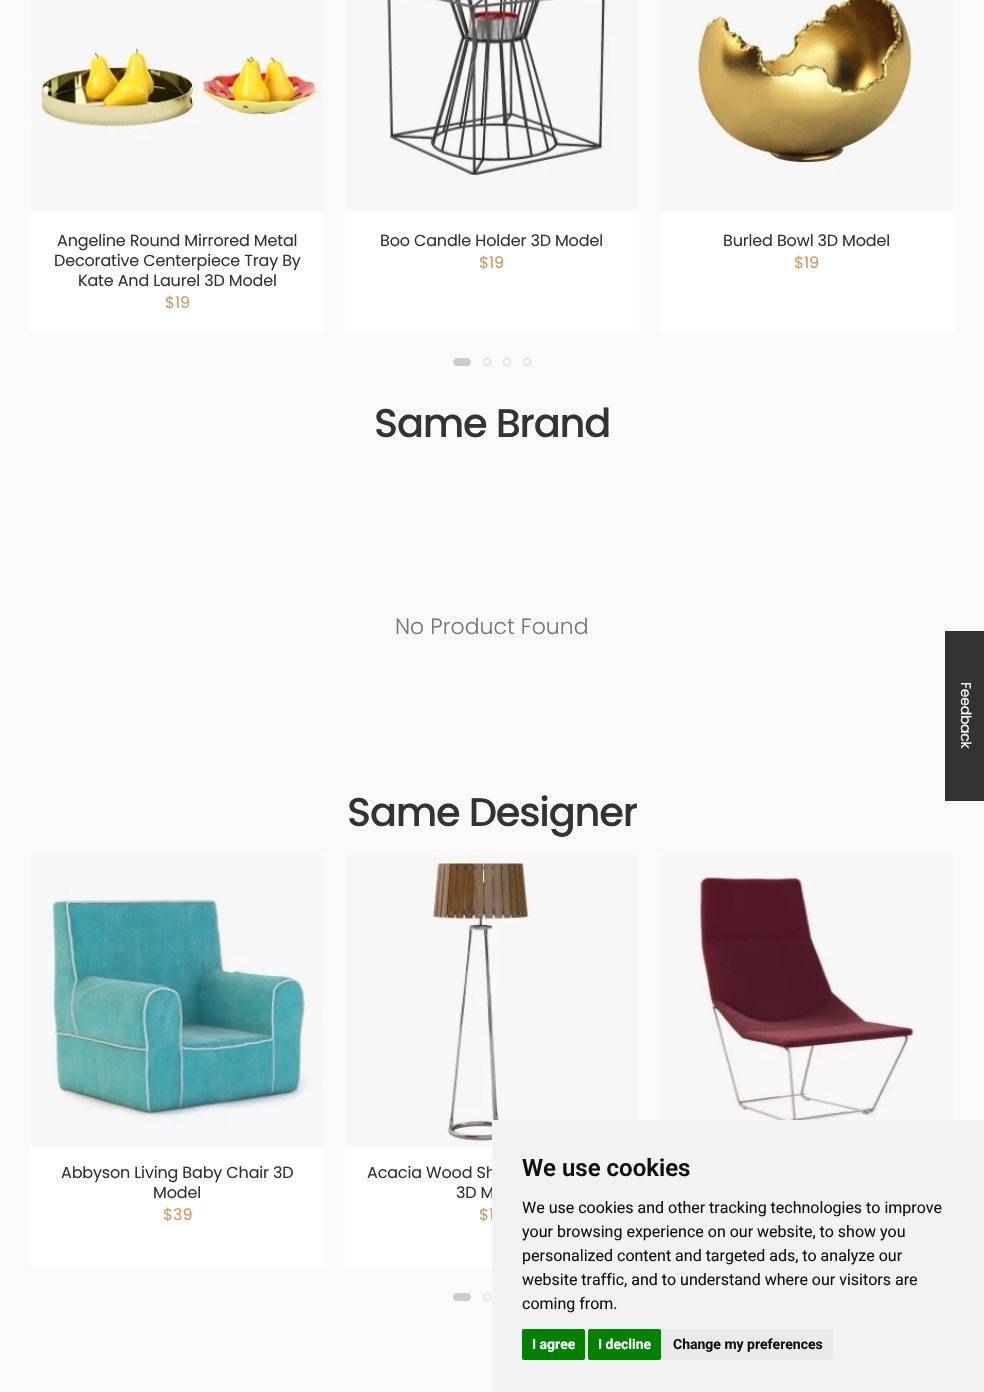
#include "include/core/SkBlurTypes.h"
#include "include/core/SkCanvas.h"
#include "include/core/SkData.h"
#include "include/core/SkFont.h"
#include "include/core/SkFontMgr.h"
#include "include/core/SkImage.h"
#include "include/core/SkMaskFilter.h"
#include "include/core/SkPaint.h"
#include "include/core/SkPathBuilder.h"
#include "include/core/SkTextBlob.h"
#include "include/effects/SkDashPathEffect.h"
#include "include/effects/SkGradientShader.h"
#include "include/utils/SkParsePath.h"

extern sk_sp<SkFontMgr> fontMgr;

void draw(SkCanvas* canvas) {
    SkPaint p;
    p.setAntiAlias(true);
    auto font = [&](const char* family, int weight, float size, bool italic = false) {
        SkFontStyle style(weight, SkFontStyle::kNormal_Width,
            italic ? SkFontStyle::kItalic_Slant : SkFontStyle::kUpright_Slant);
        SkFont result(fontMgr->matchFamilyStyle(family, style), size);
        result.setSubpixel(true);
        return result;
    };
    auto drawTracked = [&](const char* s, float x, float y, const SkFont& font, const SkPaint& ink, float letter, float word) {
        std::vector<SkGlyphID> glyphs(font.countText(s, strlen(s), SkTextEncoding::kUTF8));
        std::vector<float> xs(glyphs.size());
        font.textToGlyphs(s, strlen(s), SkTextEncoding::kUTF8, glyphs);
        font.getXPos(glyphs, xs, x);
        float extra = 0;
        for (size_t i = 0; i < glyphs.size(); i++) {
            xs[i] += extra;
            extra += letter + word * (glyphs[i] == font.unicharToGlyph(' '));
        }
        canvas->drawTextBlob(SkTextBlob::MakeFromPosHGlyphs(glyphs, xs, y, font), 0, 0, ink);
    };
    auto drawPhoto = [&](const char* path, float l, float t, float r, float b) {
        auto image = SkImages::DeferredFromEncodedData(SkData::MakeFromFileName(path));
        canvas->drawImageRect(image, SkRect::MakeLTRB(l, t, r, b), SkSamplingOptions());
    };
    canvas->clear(0xFFFAFAFA);
    p.setColor(0xFFFFFFFF);
    canvas->drawRect(SkRect::MakeLTRB(30, 0, 325, 333), p);
    drawPhoto("media/1.png", 31, 0, 324, 212);
    auto font1 = font("Poppins", 400, 16);
    p.setColor(0xFF333333);
    {
        const struct { const char* s; float x, y; } items[] = {
            {"Angeline Round Mirrored Metal", 57, 246},
            {"Decorative Centerpiece Tray By", 54, 266},
            {"Kate And Laurel 3D Model", 78, 286},
        };
        for (auto [s, x, y] : items) {
            drawTracked(s, x, y, font1, p, -0.15f, 0);
        }
    }
    p.setColor(0xFFCC9966);
    canvas->drawString("$19", 165, 308, font1, p);
    p.setColor(0xFFFFFFFF);
    canvas->drawRect(SkRect::MakeLTRB(345, 0, 639, 333), p);
    drawPhoto("media/2.png", 346, 0, 638, 212);
    p.setColor(0xFF333333);
    drawTracked("Boo Candle Holder 3D Model", 380, 246, font1, p, -0.15f, 0);
    p.setColor(0xFFCC9966);
    canvas->drawString("$19", 479, 268, font1, p);
    p.setColor(0xFFFFFFFF);
    canvas->drawRect(SkRect::MakeLTRB(659, 0, 954, 333), p);
    drawPhoto("media/3.png", 660, 0, 953, 212);
    p.setColor(0xFF333333);
    drawTracked("Burled Bowl 3D Model", 723, 246, font1, p, -0.15f, 0);
    p.setColor(0xFFCC9966);
    canvas->drawString("$19", 794, 268, font1, p);
    p.setColor(0xFFCCCCCC);
    canvas->drawRoundRect(SkRect::MakeLTRB(453.5f, 358.5f, 470.5f, 365.5f), 3.5f, 3.5f, p);
    p.setStyle(SkPaint::kStroke_Style);
    p.setStrokeWidth(1);
    canvas->drawRoundRect(SkRect::MakeLTRB(453.5f, 358.5f, 470.5f, 365.5f), 3.5f, 3.5f, p);
    p.setColor(0xFFD7D7D7);
    canvas->drawCircle(487, 362, 3.5f, p);
    canvas->drawCircle(507, 362, 3.5f, p);
    canvas->drawCircle(527, 362, 3.5f, p);
    auto font2 = font("Poppins", 500, 40);
    p.setStyle(SkPaint::kFill_Style);
    p.setColor(0xFF333333);
    drawTracked("Same Brand", 374, 437, font2, p, -1.25f, 0);
    auto font3 = font("Poppins", 300, 22);
    p.setColor(0xFF777777);
    canvas->drawString("No Product Found", 395, 634, font3, p);
    p.setColor(0xFF333333);
    drawTracked("Same Designer", 347, 826, font2, p, -1.25f, 0);
    p.setColor(0xFFFFFFFF);
    canvas->drawRect(SkRect::MakeLTRB(659, 854, 954, 1120), p);
    drawPhoto("media/4.png", 660, 855, 953, 1120);
    canvas->drawRect(SkRect::MakeLTRB(30, 854, 325, 1268), p);
    drawPhoto("media/5.png", 31, 855, 324, 1147);
    p.setColor(0xFF333333);
    drawTracked("Abbyson Living Baby Chair 3D", 61, 1178, font1, p, -0.15f, 0);
    drawTracked("Model", 153, 1198, font1, p, -0.15f, 0);
    p.setColor(0xFFCC9966);
    canvas->drawString("$39", 163, 1220, font1, p);
    p.setColor(0xFFFFFFFF);
    canvas->drawRect(SkRect::MakeLTRB(345, 854, 639, 1268), p);
    drawPhoto("media/6.png", 346, 855, 638, 1147);
    p.setColor(0xFF333333);
    drawTracked("Acacia Wood Sh", 367, 1178, font1, p, -0.15f, 0);
    drawTracked("3D M", 456, 1198, font1, p, -0.15f, 0);
    p.setColor(0xFFCC9966);
    canvas->drawString("$1", 479, 1220, font1, p);
    p.setColor(0xFFCCCCCC);
    canvas->drawRoundRect(SkRect::MakeLTRB(453.5f, 1293.5f, 470.5f, 1300.5f), 3.5f, 3.5f, p);
    p.setStyle(SkPaint::kStroke_Style);
    canvas->drawRoundRect(SkRect::MakeLTRB(453.5f, 1293.5f, 470.5f, 1300.5f), 3.5f, 3.5f, p);
    p.setColor(0xFFD7D7D7);
    canvas->drawCircle(487, 1297, 3.5f, p);
    p.setStyle(SkPaint::kFill_Style);
    p.setColor(0xFF333333);
    canvas->drawRect(SkRect::MakeLTRB(945, 631, 984, 801), p);
    auto font4 = font("Poppins", 400, 14);
    p.setColor(0xFFFFFFFF);
    canvas->save();
    canvas->rotate(90, 961, 682);
    drawTracked("Feedback", 961, 682, font4, p, -0.25f, 0);
    canvas->restore();
    p.setColor(0xFFF2F2F2);
    canvas->drawRect(SkRect::MakeLTRB(492, 1120, 984, 1392), p);
    auto font5 = font("Roboto", 600, 24);
    p.setColor(0xFF111111);
    canvas->drawString("We use cookies", 522, 1176, font5, p);
    auto font6 = font("Roboto", 400, 16);
    {
        const struct { const char* s; float x, y; } items[] = {
            {"We use cookies and other tracking technologies to improve", 522, 1213},
            {"your browsing experience on our website, to show you", 522, 1237},
            {"personalized content and targeted ads, to analyze our", 522, 1261},
            {"website traffic, and to understand where our visitors are", 522, 1285},
            {"coming from.", 522, 1309},
        };
        for (auto [s, x, y] : items) {
            canvas->drawString(s, x, y, font6, p);
        }
    }
    p.setColor(0xFF008000);
    canvas->drawRoundRect(SkRect::MakeLTRB(522, 1329, 585, 1360), 2, 2, p);
    auto font7 = font("Roboto", 700, 14);
    p.setColor(0xFFFFFFFF);
    canvas->drawString("I agree", 532, 1349, font7, p);
    p.setColor(0xFF008000);
    canvas->drawRoundRect(SkRect::MakeLTRB(588, 1329, 661, 1360), 2, 2, p);
    p.setColor(0xFFFFFFFF);
    canvas->drawString("I decline", 598, 1349, font7, p);
    p.setColor(0xFFEAEAEA);
    canvas->drawRoundRect(SkRect::MakeLTRB(663, 1329, 833, 1360), 2, 2, p);
    p.setColor(0xFF111111);
    canvas->drawString("Change my preferences", 673, 1349, font7, p);
}
